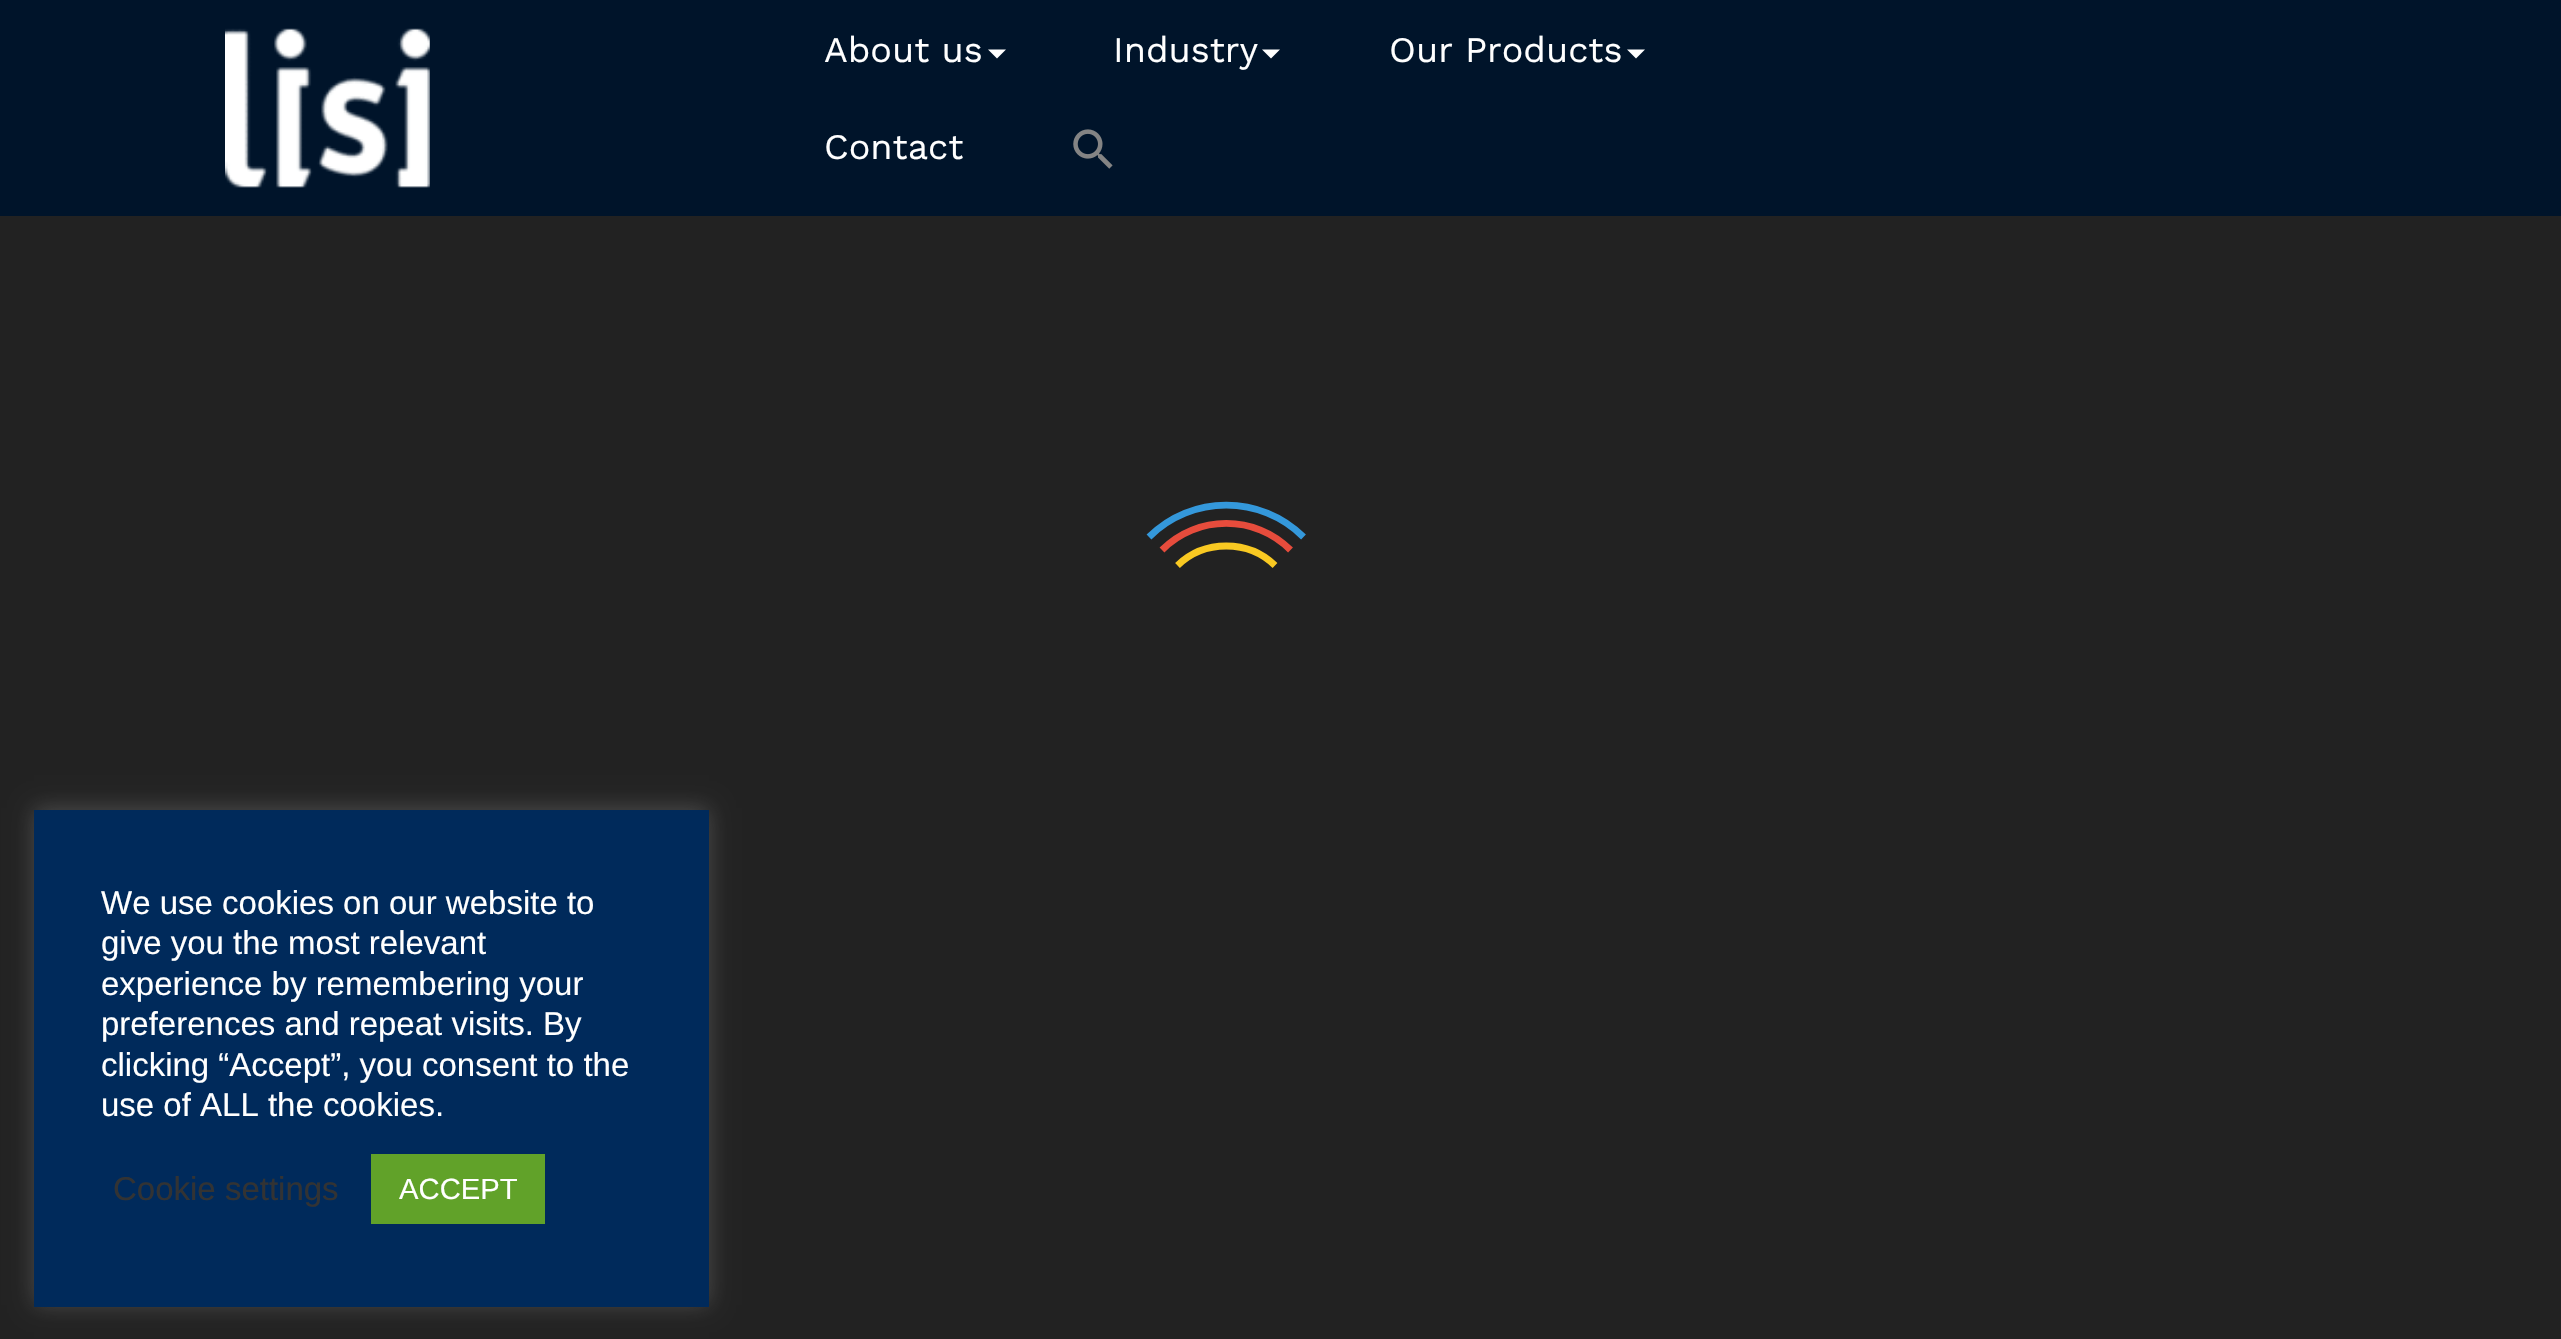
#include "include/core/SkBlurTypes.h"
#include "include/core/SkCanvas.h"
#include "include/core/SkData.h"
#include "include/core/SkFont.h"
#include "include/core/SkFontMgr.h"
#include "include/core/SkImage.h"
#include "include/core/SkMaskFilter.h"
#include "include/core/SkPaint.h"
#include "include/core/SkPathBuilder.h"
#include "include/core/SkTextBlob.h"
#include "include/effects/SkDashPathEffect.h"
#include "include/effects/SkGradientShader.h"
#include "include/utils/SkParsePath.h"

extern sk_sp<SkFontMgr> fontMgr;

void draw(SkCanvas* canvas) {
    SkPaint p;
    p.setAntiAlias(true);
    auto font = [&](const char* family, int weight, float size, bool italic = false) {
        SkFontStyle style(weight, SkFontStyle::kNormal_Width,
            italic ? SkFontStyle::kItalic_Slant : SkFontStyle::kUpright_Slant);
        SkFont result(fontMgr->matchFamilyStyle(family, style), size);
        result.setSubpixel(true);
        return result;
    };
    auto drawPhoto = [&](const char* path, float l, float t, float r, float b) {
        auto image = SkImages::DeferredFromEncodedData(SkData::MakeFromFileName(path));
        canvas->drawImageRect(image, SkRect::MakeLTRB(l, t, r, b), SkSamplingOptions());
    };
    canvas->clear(0xFF222222);
    p.setColor(0xFF00142A);
    canvas->drawRect(SkRect::MakeLTRB(0, 0, 2561, 216), p);
    drawPhoto("media/1.png", 225, 28, 430, 188);
    auto font1 = font("Work Sans", 400, 36);
    p.setColor(0xFFFFFFFF);
    canvas->drawString("About us", 824, 62, font1, p);
    canvas->drawPath(SkPathBuilder().moveTo(988, 49.5f).lineTo(1006, 49.5f).lineTo(997, 58.5f).close().detach(), p);
    canvas->drawString("Industry", 1113, 62, font1, p);
    canvas->drawPath(SkPathBuilder().moveTo(1262, 49.5f).lineTo(1280, 49.5f).lineTo(1271, 58.5f).close().detach(), p);
    canvas->drawString("Our Products", 1389, 62, font1, p);
    canvas->drawPath(SkPathBuilder().moveTo(1627, 49.5f).lineTo(1645, 49.5f).lineTo(1636, 58.5f).close().detach(), p);
    canvas->drawString("Contact", 824, 159, font1, p);
    drawPhoto("media/2.png", 1073, 129, 1113, 169);
    p.setStyle(SkPaint::kStroke_Style);
    p.setStrokeWidth(6.8f);
    p.setColor(0xFF3498DB);
    canvas->drawPath(SkPathBuilder().moveTo(1149, 537).cubicTo(1191.5f, 494.5f, 1261, 494.5f, 1303.5f, 537).detach(), p);
    p.setColor(0xFFE74C3C);
    canvas->drawPath(SkPathBuilder().moveTo(1162, 550).cubicTo(1197, 514.5f, 1255.5f, 514.5f, 1290.5f, 550).detach(), p);
    p.setColor(0xFFF9C922);
    canvas->drawPath(SkPathBuilder().moveTo(1177.5f, 565.5f).cubicTo(1204, 539.5f, 1248.5f, 539.5f, 1275, 565.5f).detach(), p);
    p.setStyle(SkPaint::kFill_Style);
    p.setColor(0x4DACABAB);
    p.setMaskFilter(SkMaskFilter::MakeBlur(kNormal_SkBlurStyle, 11));
    canvas->drawRect(SkRect::MakeLTRB(34, 808, 709, 1305), p);
    p.setMaskFilter(nullptr);
    p.setColor(0xFF002A5B);
    canvas->drawRect(SkRect::MakeLTRB(34, 810, 709, 1307), p);
    auto font2 = font("Liberation Sans", 400, 33);
    p.setColor(0xFFFFFFFF);
    {
        const struct { const char* s; float x, y; } items[] = {
            {"We use cookies on our website to", 101, 914},
            {"give you the most relevant", 101, 954},
            {"experience by remembering your", 101, 995},
            {"preferences and repeat visits. By", 101, 1035},
            {"clicking “Accept”, you consent to the", 101, 1076},
            {"use of ALL the cookies.", 101, 1116},
        };
        for (auto [s, x, y] : items) {
            canvas->drawString(s, x, y, font2, p);
        }
    }
    p.setColor(0xFF333333);
    canvas->drawString("Cookie settings", 113, 1200, font2, p);
    p.setColor(0xFF61A229);
    canvas->drawRect(SkRect::MakeLTRB(371, 1154, 545, 1224), p);
    auto font3 = font("Liberation Sans", 400, 29.25f);
    p.setColor(0xFFFFFFFF);
    canvas->drawString("ACCEPT", 399, 1199, font3, p);
}
